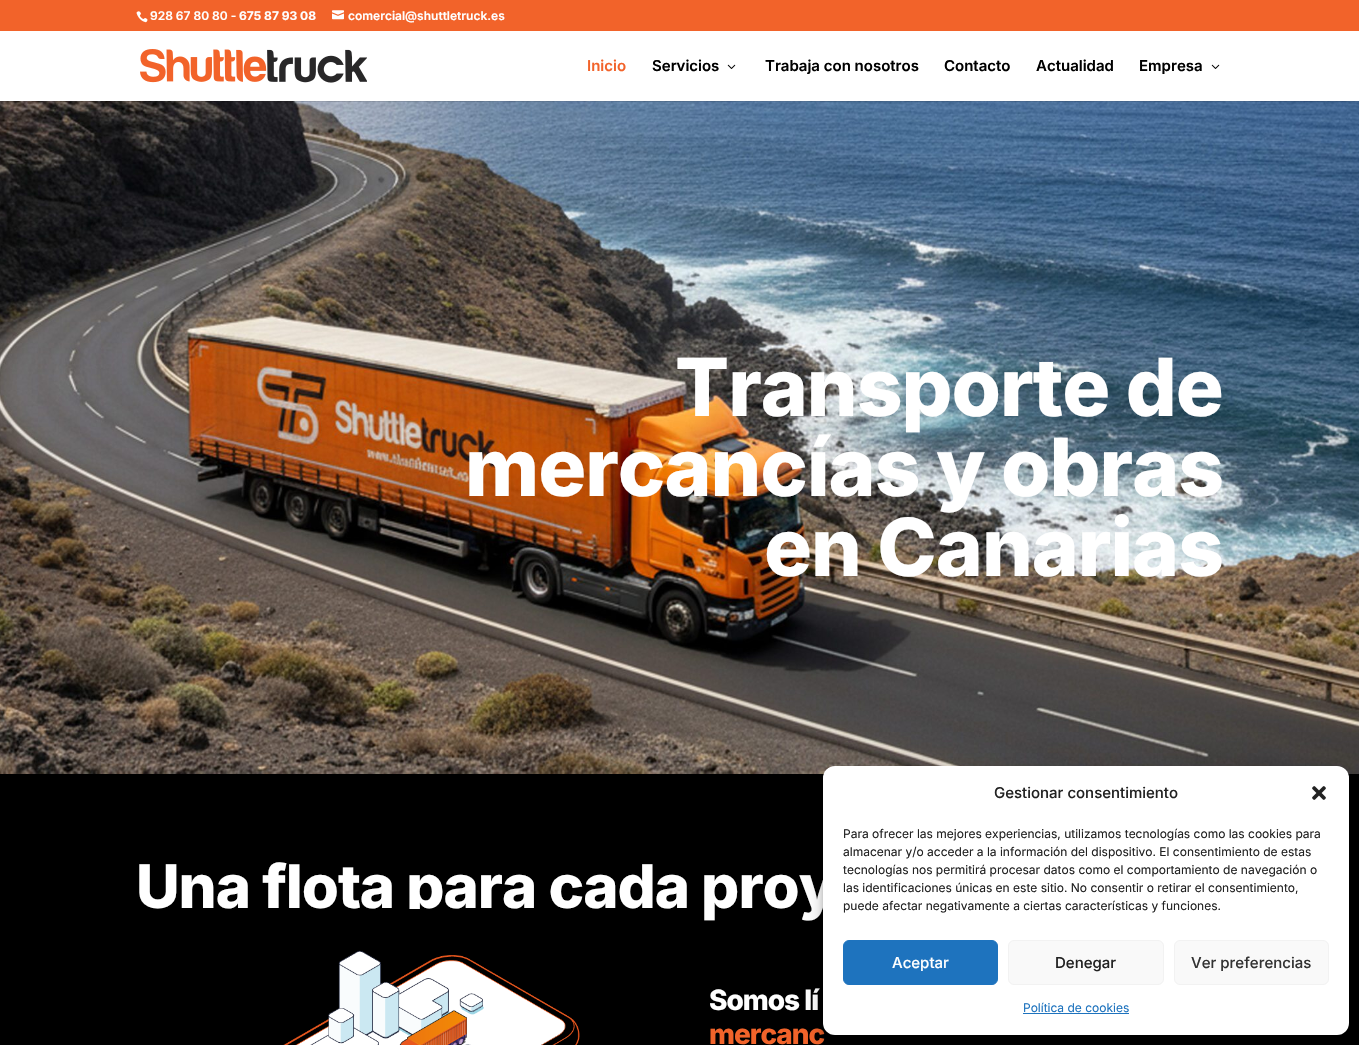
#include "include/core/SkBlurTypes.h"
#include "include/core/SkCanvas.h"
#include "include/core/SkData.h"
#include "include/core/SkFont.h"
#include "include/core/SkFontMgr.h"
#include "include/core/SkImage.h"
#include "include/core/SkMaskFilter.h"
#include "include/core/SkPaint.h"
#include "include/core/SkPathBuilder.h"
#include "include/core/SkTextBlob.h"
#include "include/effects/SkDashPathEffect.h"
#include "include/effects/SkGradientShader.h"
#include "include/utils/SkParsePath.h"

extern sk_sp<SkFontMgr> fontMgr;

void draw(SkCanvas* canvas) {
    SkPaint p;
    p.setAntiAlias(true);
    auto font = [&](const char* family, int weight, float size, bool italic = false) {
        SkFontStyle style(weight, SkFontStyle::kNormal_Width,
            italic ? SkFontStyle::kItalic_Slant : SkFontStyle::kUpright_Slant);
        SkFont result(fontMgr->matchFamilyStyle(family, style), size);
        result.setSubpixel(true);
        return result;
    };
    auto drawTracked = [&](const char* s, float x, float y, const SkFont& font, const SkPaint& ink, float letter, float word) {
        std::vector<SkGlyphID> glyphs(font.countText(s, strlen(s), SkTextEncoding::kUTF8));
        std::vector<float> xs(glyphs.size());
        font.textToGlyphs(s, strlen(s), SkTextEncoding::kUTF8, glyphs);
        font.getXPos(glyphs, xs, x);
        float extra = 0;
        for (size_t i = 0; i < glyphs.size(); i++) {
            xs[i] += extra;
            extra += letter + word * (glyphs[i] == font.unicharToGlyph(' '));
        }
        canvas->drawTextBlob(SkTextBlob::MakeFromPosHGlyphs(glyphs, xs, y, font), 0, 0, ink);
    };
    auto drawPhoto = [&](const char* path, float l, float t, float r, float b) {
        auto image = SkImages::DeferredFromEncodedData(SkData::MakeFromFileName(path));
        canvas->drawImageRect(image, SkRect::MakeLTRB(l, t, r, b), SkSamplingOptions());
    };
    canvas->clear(0xFFFFFFFF);
    p.setColor(0xFFF2632A);
    canvas->drawRect(SkRect::MakeLTRB(0, 0, 1359, 31), p);
    drawPhoto("media/1.png", 136, 11, 148, 23);
    auto font1 = font("Inter", 600, 12);
    p.setColor(0xFFFFFFFF);
    canvas->drawString("928 67 80 80 -", 150, 20, font1, p);
    auto font2 = font("Inter", 700, 12);
    canvas->drawString("675 87 93 08", 239, 20, font2, p);
    drawPhoto("media/2.png", 332, 10, 344, 20);
    canvas->drawString("comercial@shuttletruck.es", 348, 20, font1, p);
    drawPhoto("media/5.png", 0, 101, 1359, 774);
    p.setColor(0x1A000000);
    canvas->drawRect(SkRect::MakeLTRB(0, 101, 1359, 102), p);
    drawPhoto("media/3.png", 140, 49, 367, 83);
    auto font3 = font("Inter", 600, 15);
    p.setColor(0xFFF2632A);
    canvas->drawString("Inicio", 587, 71, font3, p);
    p.setColor(0xFF000000);
    canvas->drawString("Servicios", 652, 71, font3, p);
    drawPhoto("media/4.png", 727, 64, 736, 69);
    {
        const struct { const char* s; float x, y; } items[] = {
            {"Trabaja con nosotros", 765, 71},
            {"Contacto", 944, 71},
            {"Actualidad", 1036, 71},
            {"Empresa", 1139, 71},
        };
        for (auto [s, x, y] : items) {
            canvas->drawString(s, x, y, font3, p);
        }
    }
    drawPhoto("media/4.png", 1211, 64, 1220, 69);
    auto font4 = font("Inter", 800, 80);
    p.setColor(0xFFFFFFFF);
    {
        const struct { const char* s; float x, y; } items[] = {
            {"Transporte de", 675, 416},
            {"mercancías y obras", 465, 496},
            {"en Canarias", 764, 576},
        };
        for (auto [s, x, y] : items) {
            drawTracked(s, x, y, font4, p, -1, 0);
        }
    }
    p.setColor(0xFF000000);
    canvas->drawRect(SkRect::MakeLTRB(0, 774, 1359, 1045), p);
    auto font5 = font("Inter", 800, 60);
    p.setColor(0xFFFFFFFF);
    drawTracked("Una flota para cada proy", 136, 908, font5, p, -1, 0);
    drawPhoto("media/6.png", 283, 909, 580, 1045);
    auto font6 = font("Inter", 800, 28);
    drawTracked("Somos lí", 709, 1010, font6, p, -1, 0);
    p.setColor(0xFFF2632A);
    drawTracked("mercanc", 709, 1044, font6, p, -1, 0);
    p.setColor(0x3B000000);
    p.setMaskFilter(SkMaskFilter::MakeBlur(kNormal_SkBlurStyle, 3));
    canvas->drawRoundRect(SkRect::MakeLTRB(823, 772, 1349, 1041), 12, 12, p);
    p.setMaskFilter(nullptr);
    p.setColor(0x30000000);
    p.setMaskFilter(SkMaskFilter::MakeBlur(kNormal_SkBlurStyle, 10));
    canvas->drawRoundRect(SkRect::MakeLTRB(823, 776, 1349, 1045), 12, 12, p);
    p.setMaskFilter(nullptr);
    p.setColor(0xFFFFFFFF);
    canvas->drawRoundRect(SkRect::MakeLTRB(823, 766, 1349, 1035), 12, 12, p);
    auto font7 = font("Inter", 500, 15);
    p.setColor(0xFF222222);
    canvas->drawString("Gestionar consentimiento", 994, 798, font7, p);
    drawPhoto("media/7.png", 1312, 786, 1326, 800);
    auto font8 = font("Inter", 400, 12);
    {
        const struct { const char* s; float x, y; } items[] = {
            {"Para ofrecer las mejores experiencias, utilizamos tecnologías como las cookies para", 843, 838},
            {"almacenar y/o acceder a la información del dispositivo. El consentimiento de estas", 843, 856},
            {"tecnologías nos permitirá procesar datos como el comportamiento de navegación o", 843, 874},
            {"las identificaciones únicas en este sitio. No consentir o retirar el consentimiento,", 843, 892},
            {"puede afectar negativamente a ciertas características y funciones.", 843, 910},
        };
        for (auto [s, x, y] : items) {
            canvas->drawString(s, x, y, font8, p);
        }
    }
    p.setColor(0xFF1E73BE);
    canvas->drawRoundRect(SkRect::MakeLTRB(843.5f, 940.5f, 997.5f, 984.5f), 5.5f, 5.5f, p);
    p.setStyle(SkPaint::kStroke_Style);
    p.setStrokeWidth(1);
    canvas->drawRoundRect(SkRect::MakeLTRB(843.5f, 940.5f, 997.5f, 984.5f), 5.5f, 5.5f, p);
    p.setStyle(SkPaint::kFill_Style);
    p.setColor(0xFFFFFFFF);
    canvas->drawString("Aceptar", 892, 968, font7, p);
    p.setColor(0xFFF9F9F9);
    canvas->drawRoundRect(SkRect::MakeLTRB(1008.5f, 940.5f, 1163.5f, 984.5f), 5.5f, 5.5f, p);
    p.setStyle(SkPaint::kStroke_Style);
    p.setColor(0xFFF2F2F2);
    canvas->drawRoundRect(SkRect::MakeLTRB(1008.5f, 940.5f, 1163.5f, 984.5f), 5.5f, 5.5f, p);
    p.setStyle(SkPaint::kFill_Style);
    p.setColor(0xFF222222);
    canvas->drawString("Denegar", 1055, 968, font7, p);
    p.setColor(0xFFF9F9F9);
    canvas->drawRoundRect(SkRect::MakeLTRB(1174.5f, 940.5f, 1328.5f, 984.5f), 5.5f, 5.5f, p);
    p.setStyle(SkPaint::kStroke_Style);
    p.setColor(0xFFF2F2F2);
    canvas->drawRoundRect(SkRect::MakeLTRB(1174.5f, 940.5f, 1328.5f, 984.5f), 5.5f, 5.5f, p);
    p.setStyle(SkPaint::kFill_Style);
    p.setColor(0xFF333333);
    canvas->drawString("Ver preferencias", 1191, 968, font7, p);
    p.setColor(0xFF1E73BE);
    canvas->drawString("Política de cookies", 1023, 1012, font8, p);
    canvas->drawRect(SkRect::MakeLTRB(1023, 1013, 1129, 1014), p);
}
